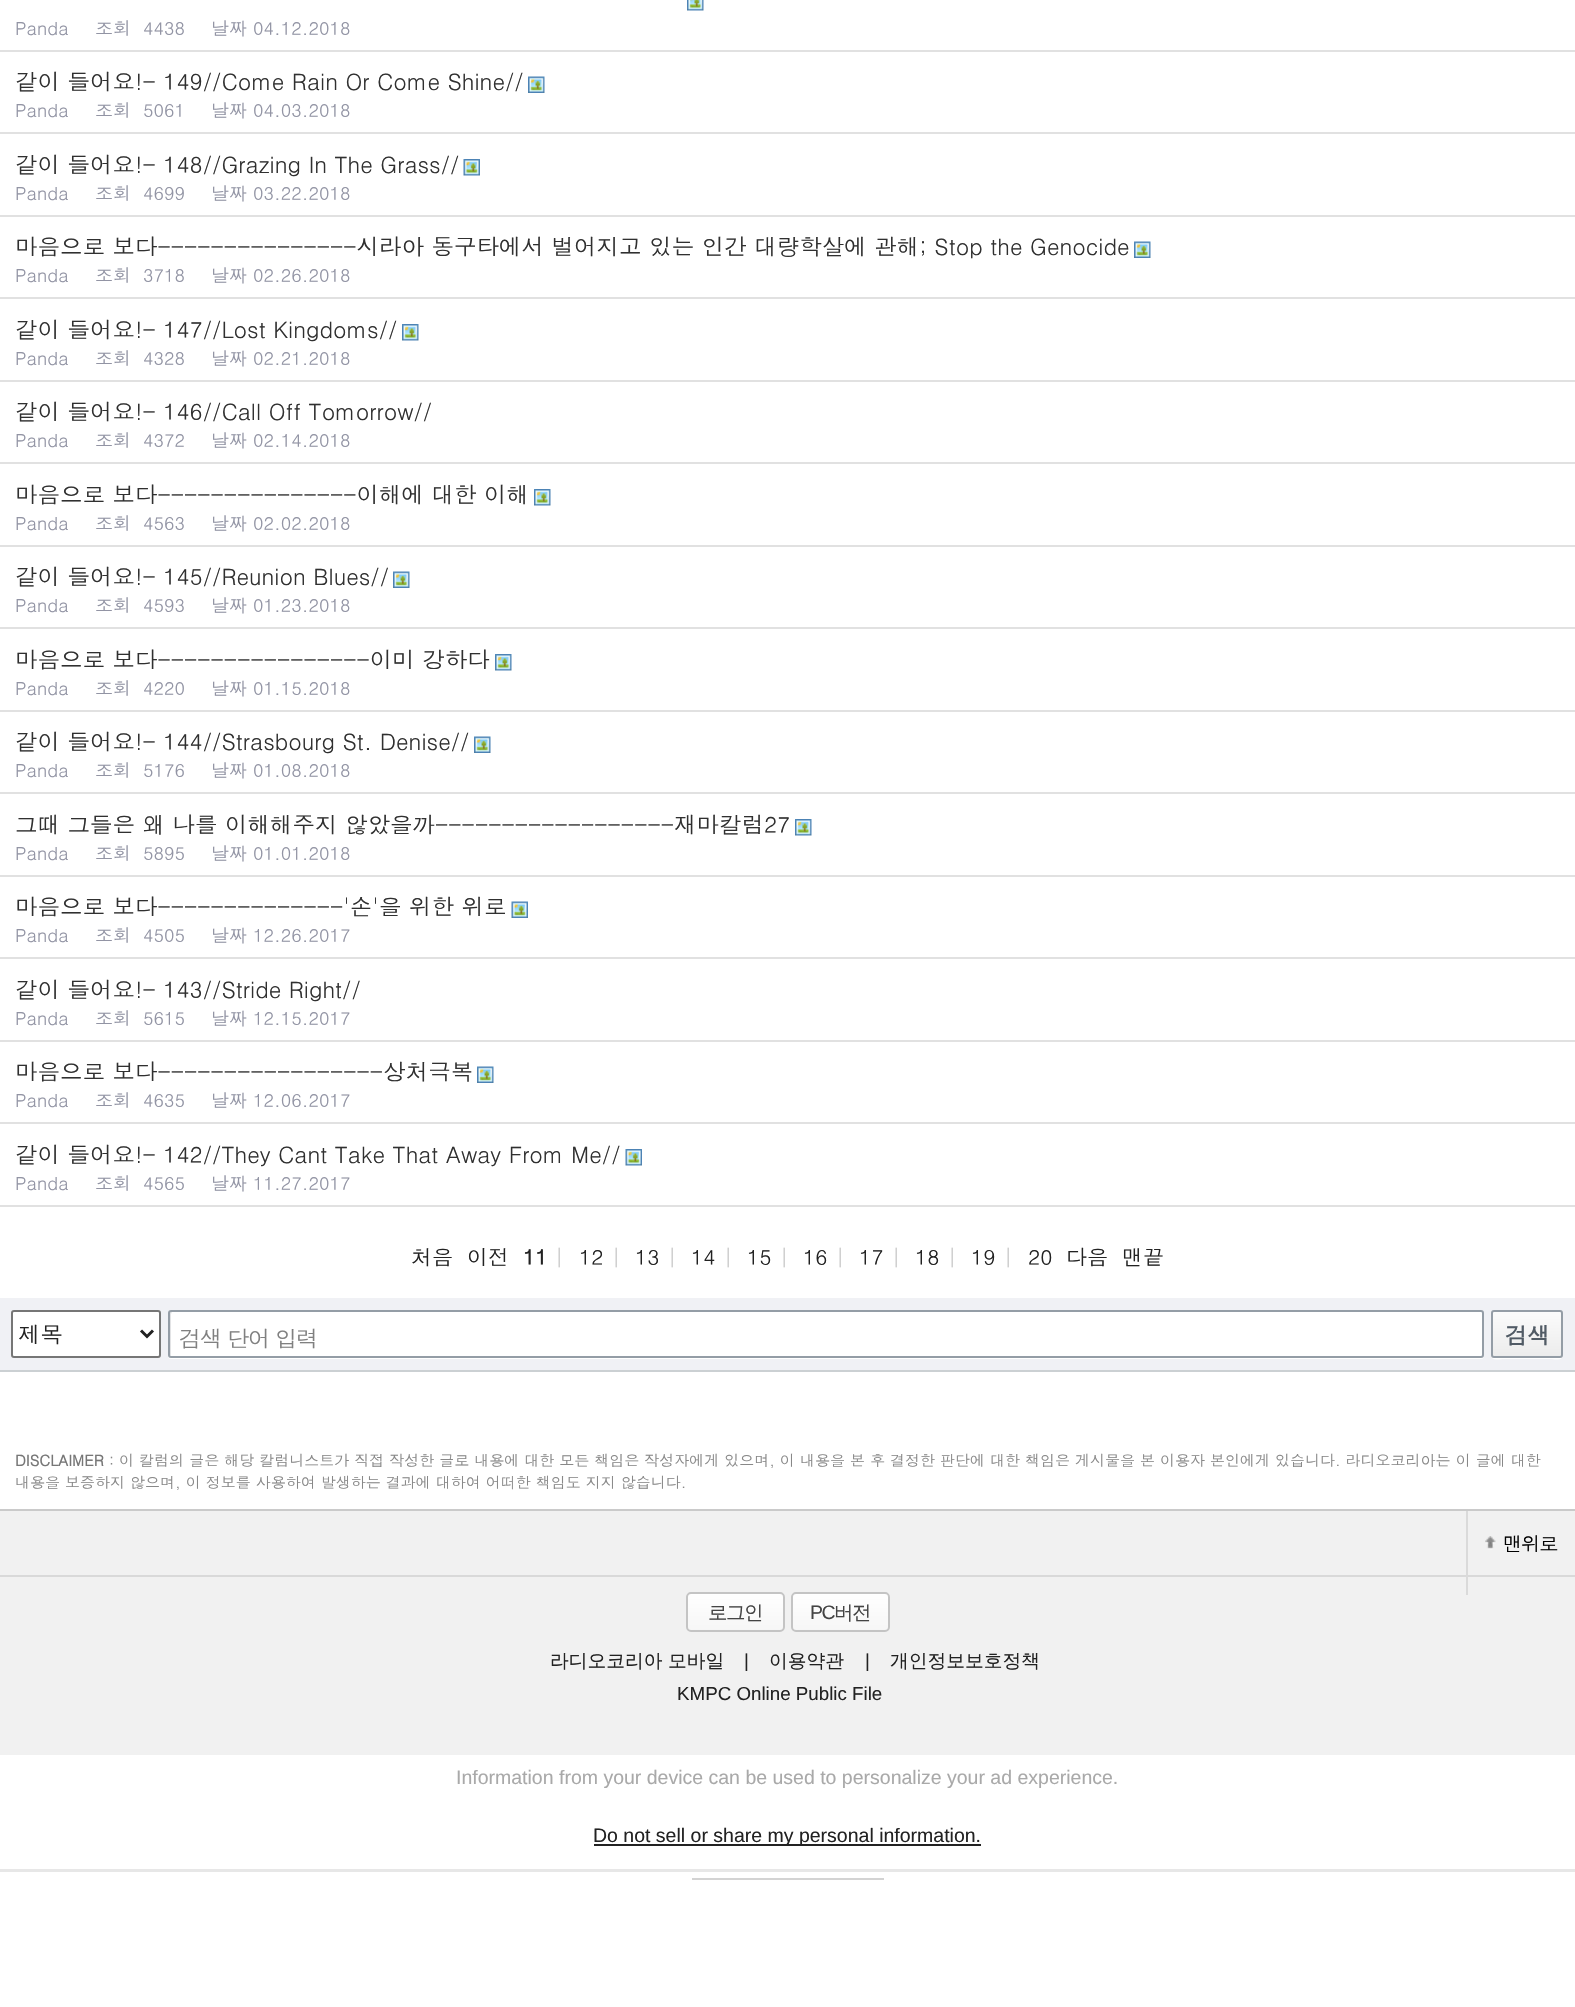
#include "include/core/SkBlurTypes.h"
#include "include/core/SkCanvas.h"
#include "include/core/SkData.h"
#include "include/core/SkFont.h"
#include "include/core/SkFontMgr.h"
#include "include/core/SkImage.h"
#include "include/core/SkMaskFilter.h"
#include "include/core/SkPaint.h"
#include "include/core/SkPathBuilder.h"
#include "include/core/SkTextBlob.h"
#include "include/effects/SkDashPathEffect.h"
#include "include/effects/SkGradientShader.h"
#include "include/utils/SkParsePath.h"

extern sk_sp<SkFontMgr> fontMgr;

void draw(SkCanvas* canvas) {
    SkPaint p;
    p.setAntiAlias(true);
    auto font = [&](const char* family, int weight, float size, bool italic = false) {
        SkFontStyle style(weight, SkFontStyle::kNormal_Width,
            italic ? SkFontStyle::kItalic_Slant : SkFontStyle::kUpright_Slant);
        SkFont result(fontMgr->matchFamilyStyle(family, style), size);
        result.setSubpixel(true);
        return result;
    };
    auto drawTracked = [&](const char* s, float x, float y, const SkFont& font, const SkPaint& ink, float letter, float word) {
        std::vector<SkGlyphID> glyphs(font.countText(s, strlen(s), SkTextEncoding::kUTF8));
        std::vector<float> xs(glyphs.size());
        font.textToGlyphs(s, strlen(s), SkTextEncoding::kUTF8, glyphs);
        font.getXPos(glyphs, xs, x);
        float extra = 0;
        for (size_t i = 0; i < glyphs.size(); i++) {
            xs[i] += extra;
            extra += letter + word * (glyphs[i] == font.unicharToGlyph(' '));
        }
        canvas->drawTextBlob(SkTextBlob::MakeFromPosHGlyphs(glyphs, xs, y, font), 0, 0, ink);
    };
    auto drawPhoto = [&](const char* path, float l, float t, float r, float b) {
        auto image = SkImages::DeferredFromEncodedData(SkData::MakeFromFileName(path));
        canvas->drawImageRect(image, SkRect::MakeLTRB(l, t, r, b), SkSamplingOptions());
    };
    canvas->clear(0xFFFFFFFF);
    p.setColor(0xFFE1E1E1);
    canvas->drawRect(SkRect::MakeLTRB(0, 50, 1575, 52), p);
    drawPhoto("media/1.png", 687, 0, 704, 11);
    auto font1 = font("Dotum", 400, 18);
    p.setColor(0xFF9294A4);
    {
        const struct { const char* s; float x, y; } items[] = {
            {"Panda", 15, 35},
            {"조회", 95, 35},
            {"4438", 143, 35},
            {"날짜 04.12.2018", 211, 35},
        };
        for (auto [s, x, y] : items) {
            canvas->drawString(s, x, y, font1, p);
        }
    }
    p.setColor(0xFFE1E1E1);
    canvas->drawRect(SkRect::MakeLTRB(0, 132, 1575, 134), p);
    auto font2 = font("Dotum", 400, 22.5f);
    p.setColor(0xFF303030);
    canvas->drawString("같이 들어요!- 149//Come Rain Or Come Shine//", 15, 90, font2, p);
    drawPhoto("media/2.png", 528, 76, 545, 93);
    p.setColor(0xFF9294A4);
    {
        const struct { const char* s; float x, y; } items[] = {
            {"Panda", 15, 117},
            {"조회", 95, 117},
            {"5061", 143, 117},
            {"날짜 04.03.2018", 211, 117},
        };
        for (auto [s, x, y] : items) {
            canvas->drawString(s, x, y, font1, p);
        }
    }
    p.setColor(0xFFE1E1E1);
    canvas->drawRect(SkRect::MakeLTRB(0, 215, 1575, 217), p);
    p.setColor(0xFF303030);
    canvas->drawString("같이 들어요!- 148//Grazing In The Grass//", 15, 173, font2, p);
    drawPhoto("media/3.png", 463, 159, 480, 176);
    p.setColor(0xFF9294A4);
    {
        const struct { const char* s; float x, y; } items[] = {
            {"Panda", 15, 200},
            {"조회", 95, 200},
            {"4699", 143, 200},
            {"날짜 03.22.2018", 211, 200},
        };
        for (auto [s, x, y] : items) {
            canvas->drawString(s, x, y, font1, p);
        }
    }
    p.setColor(0xFFE1E1E1);
    canvas->drawRect(SkRect::MakeLTRB(0, 297, 1575, 299), p);
    p.setColor(0xFF303030);
    canvas->drawString("마음으로 보다---------------시라아 동구타에서 벌어지고 있는 인간 대량학살에 관해; Stop the Genocide", 15, 255, font2, p);
    drawPhoto("media/2.png", 1134, 241, 1151, 258);
    p.setColor(0xFF9294A4);
    {
        const struct { const char* s; float x, y; } items[] = {
            {"Panda", 15, 282},
            {"조회", 95, 282},
            {"3718", 143, 282},
            {"날짜 02.26.2018", 211, 282},
        };
        for (auto [s, x, y] : items) {
            canvas->drawString(s, x, y, font1, p);
        }
    }
    p.setColor(0xFFE1E1E1);
    canvas->drawRect(SkRect::MakeLTRB(0, 380, 1575, 382), p);
    p.setColor(0xFF303030);
    canvas->drawString("같이 들어요!- 147//Lost Kingdoms//", 15, 338, font2, p);
    drawPhoto("media/4.png", 402, 324, 419, 341);
    p.setColor(0xFF9294A4);
    {
        const struct { const char* s; float x, y; } items[] = {
            {"Panda", 15, 365},
            {"조회", 95, 365},
            {"4328", 143, 365},
            {"날짜 02.21.2018", 211, 365},
        };
        for (auto [s, x, y] : items) {
            canvas->drawString(s, x, y, font1, p);
        }
    }
    p.setColor(0xFFE1E1E1);
    canvas->drawRect(SkRect::MakeLTRB(0, 462, 1575, 464), p);
    p.setColor(0xFF303030);
    canvas->drawString("같이 들어요!- 146//Call Off Tomorrow//", 15, 420, font2, p);
    p.setColor(0xFF9294A4);
    {
        const struct { const char* s; float x, y; } items[] = {
            {"Panda", 15, 447},
            {"조회", 95, 447},
            {"4372", 143, 447},
            {"날짜 02.14.2018", 211, 447},
        };
        for (auto [s, x, y] : items) {
            canvas->drawString(s, x, y, font1, p);
        }
    }
    p.setColor(0xFFE1E1E1);
    canvas->drawRect(SkRect::MakeLTRB(0, 545, 1575, 547), p);
    p.setColor(0xFF303030);
    canvas->drawString("마음으로 보다---------------이해에 대한 이해", 15, 503, font2, p);
    drawPhoto("media/5.png", 534, 489, 551, 506);
    p.setColor(0xFF9294A4);
    {
        const struct { const char* s; float x, y; } items[] = {
            {"Panda", 15, 530},
            {"조회", 95, 530},
            {"4563", 143, 530},
            {"날짜 02.02.2018", 211, 530},
        };
        for (auto [s, x, y] : items) {
            canvas->drawString(s, x, y, font1, p);
        }
    }
    p.setColor(0xFFE1E1E1);
    canvas->drawRect(SkRect::MakeLTRB(0, 627, 1575, 629), p);
    p.setColor(0xFF303030);
    canvas->drawString("같이 들어요!- 145//Reunion Blues//", 15, 585, font2, p);
    drawPhoto("media/2.png", 393, 571, 410, 588);
    p.setColor(0xFF9294A4);
    {
        const struct { const char* s; float x, y; } items[] = {
            {"Panda", 15, 612},
            {"조회", 95, 612},
            {"4593", 143, 612},
            {"날짜 01.23.2018", 211, 612},
        };
        for (auto [s, x, y] : items) {
            canvas->drawString(s, x, y, font1, p);
        }
    }
    p.setColor(0xFFE1E1E1);
    canvas->drawRect(SkRect::MakeLTRB(0, 710, 1575, 712), p);
    p.setColor(0xFF303030);
    canvas->drawString("마음으로 보다----------------이미 강하다", 15, 668, font2, p);
    drawPhoto("media/4.png", 495, 654, 512, 671);
    p.setColor(0xFF9294A4);
    {
        const struct { const char* s; float x, y; } items[] = {
            {"Panda", 15, 695},
            {"조회", 95, 695},
            {"4220", 143, 695},
            {"날짜 01.15.2018", 211, 695},
        };
        for (auto [s, x, y] : items) {
            canvas->drawString(s, x, y, font1, p);
        }
    }
    p.setColor(0xFFE1E1E1);
    canvas->drawRect(SkRect::MakeLTRB(0, 792, 1575, 794), p);
    p.setColor(0xFF303030);
    canvas->drawString("같이 들어요!- 144//Strasbourg St. Denise//", 15, 750, font2, p);
    drawPhoto("media/2.png", 474, 736, 491, 753);
    p.setColor(0xFF9294A4);
    {
        const struct { const char* s; float x, y; } items[] = {
            {"Panda", 15, 777},
            {"조회", 95, 777},
            {"5176", 143, 777},
            {"날짜 01.08.2018", 211, 777},
        };
        for (auto [s, x, y] : items) {
            canvas->drawString(s, x, y, font1, p);
        }
    }
    p.setColor(0xFFE1E1E1);
    canvas->drawRect(SkRect::MakeLTRB(0, 875, 1575, 877), p);
    p.setColor(0xFF303030);
    canvas->drawString("그때 그들은 왜 나를 이해해주지 않았을까------------------재마칼럼27", 15, 833, font2, p);
    drawPhoto("media/5.png", 795, 819, 812, 836);
    p.setColor(0xFF9294A4);
    {
        const struct { const char* s; float x, y; } items[] = {
            {"Panda", 15, 860},
            {"조회", 95, 860},
            {"5895", 143, 860},
            {"날짜 01.01.2018", 211, 860},
        };
        for (auto [s, x, y] : items) {
            canvas->drawString(s, x, y, font1, p);
        }
    }
    p.setColor(0xFFE1E1E1);
    canvas->drawRect(SkRect::MakeLTRB(0, 957, 1575, 959), p);
    p.setColor(0xFF303030);
    canvas->drawString("마음으로 보다--------------'손'을 위한 위로", 15, 915, font2, p);
    drawPhoto("media/6.png", 511, 901, 528, 918);
    p.setColor(0xFF9294A4);
    {
        const struct { const char* s; float x, y; } items[] = {
            {"Panda", 15, 942},
            {"조회", 95, 942},
            {"4505", 143, 942},
            {"날짜 12.26.2017", 211, 942},
        };
        for (auto [s, x, y] : items) {
            canvas->drawString(s, x, y, font1, p);
        }
    }
    p.setColor(0xFFE1E1E1);
    canvas->drawRect(SkRect::MakeLTRB(0, 1040, 1575, 1042), p);
    p.setColor(0xFF303030);
    canvas->drawString("같이 들어요!- 143//Stride Right//", 15, 998, font2, p);
    p.setColor(0xFF9294A4);
    {
        const struct { const char* s; float x, y; } items[] = {
            {"Panda", 15, 1025},
            {"조회", 95, 1025},
            {"5615", 143, 1025},
            {"날짜 12.15.2017", 211, 1025},
        };
        for (auto [s, x, y] : items) {
            canvas->drawString(s, x, y, font1, p);
        }
    }
    p.setColor(0xFFE1E1E1);
    canvas->drawRect(SkRect::MakeLTRB(0, 1122, 1575, 1124), p);
    p.setColor(0xFF303030);
    canvas->drawString("마음으로 보다-----------------상처극복", 15, 1080, font2, p);
    drawPhoto("media/2.png", 477, 1066, 494, 1083);
    p.setColor(0xFF9294A4);
    {
        const struct { const char* s; float x, y; } items[] = {
            {"Panda", 15, 1107},
            {"조회", 95, 1107},
            {"4635", 143, 1107},
            {"날짜 12.06.2017", 211, 1107},
        };
        for (auto [s, x, y] : items) {
            canvas->drawString(s, x, y, font1, p);
        }
    }
    p.setColor(0xFFE1E1E1);
    canvas->drawRect(SkRect::MakeLTRB(0, 1205, 1575, 1207), p);
    p.setColor(0xFF303030);
    canvas->drawString("같이 들어요!- 142//They Cant Take That Away From Me//", 15, 1163, font2, p);
    drawPhoto("media/7.png", 625, 1149, 642, 1166);
    p.setColor(0xFF9294A4);
    {
        const struct { const char* s; float x, y; } items[] = {
            {"Panda", 15, 1190},
            {"조회", 95, 1190},
            {"4565", 143, 1190},
            {"날짜 11.27.2017", 211, 1190},
        };
        for (auto [s, x, y] : items) {
            canvas->drawString(s, x, y, font1, p);
        }
    }
    auto font3 = font("Dotum", 400, 21);
    p.setColor(0xFF222222);
    canvas->drawString("처음", 411, 1265, font3, p);
    canvas->drawString("이전", 467, 1265, font3, p);
    auto font4 = font("Dotum", 700, 21);
    canvas->drawString("11", 523, 1265, font4, p);
    p.setColor(0xFFCCCCCC);
    canvas->drawString("|", 554, 1265, font3, p);
    p.setColor(0xFF222222);
    canvas->drawString("12", 579, 1265, font3, p);
    p.setColor(0xFFCCCCCC);
    canvas->drawString("|", 611, 1265, font3, p);
    p.setColor(0xFF222222);
    canvas->drawString("13", 635, 1265, font3, p);
    p.setColor(0xFFCCCCCC);
    canvas->drawString("|", 667, 1265, font3, p);
    p.setColor(0xFF222222);
    canvas->drawString("14", 691, 1265, font3, p);
    p.setColor(0xFFCCCCCC);
    canvas->drawString("|", 723, 1265, font3, p);
    p.setColor(0xFF222222);
    canvas->drawString("15", 747, 1265, font3, p);
    p.setColor(0xFFCCCCCC);
    canvas->drawString("|", 779, 1265, font3, p);
    p.setColor(0xFF222222);
    canvas->drawString("16", 803, 1265, font3, p);
    p.setColor(0xFFCCCCCC);
    canvas->drawString("|", 835, 1265, font3, p);
    p.setColor(0xFF222222);
    canvas->drawString("17", 859, 1265, font3, p);
    p.setColor(0xFFCCCCCC);
    canvas->drawString("|", 891, 1265, font3, p);
    p.setColor(0xFF222222);
    canvas->drawString("18", 915, 1265, font3, p);
    p.setColor(0xFFCCCCCC);
    canvas->drawString("|", 947, 1265, font3, p);
    p.setColor(0xFF222222);
    canvas->drawString("19", 971, 1265, font3, p);
    p.setColor(0xFFCCCCCC);
    canvas->drawString("|", 1003, 1265, font3, p);
    p.setColor(0xFF222222);
    {
        const struct { const char* s; float x, y; } items[] = {
            {"20", 1028, 1265},
            {"다음", 1066, 1265},
            {"맨끝", 1122, 1265},
        };
        for (auto [s, x, y] : items) {
            canvas->drawString(s, x, y, font3, p);
        }
    }
    p.setColor(0xFFF0F1F5);
    canvas->drawRect(SkRect::MakeLTRB(0, 1298, 1575, 1370), p);
    p.setColor(0xFFCBD0D3);
    canvas->drawRect(SkRect::MakeLTRB(0, 1370, 1575, 1372), p);
    p.setColor(0xFFFFFFFF);
    canvas->drawPath(SkPathBuilder().moveTo(168, 1354).lineTo(168, 1356).cubicTo(168, 1358, 169, 1359, 171, 1359).lineTo(1481, 1359).cubicTo(1483, 1359, 1484, 1358, 1484, 1356).lineTo(1484, 1314).lineTo(1483, 1312).lineTo(1484, 1354).cubicTo(1484, 1356, 1482, 1358, 1480, 1358).lineTo(171, 1358).cubicTo(169, 1358, 168, 1356, 168, 1354).close().detach(), p);
    canvas->drawRoundRect(SkRect::MakeLTRB(168, 1310, 1484, 1358), 3, 3, p);
    p.setColor(0xFFE2E3E5);
    canvas->drawPath(SkPathBuilder().moveTo(172, 1312).lineTo(1482, 1312).lineTo(1480, 1311).lineTo(172, 1311).lineTo(170, 1312).lineTo(170, 1355).lineTo(171, 1356).lineTo(171, 1314).close().detach(), p);
    p.setStyle(SkPaint::kStroke_Style);
    p.setStrokeWidth(2);
    p.setColor(0xFF949DA6);
    canvas->drawRoundRect(SkRect::MakeLTRB(169, 1311, 1483, 1357), 2, 2, p);
    p.setStyle(SkPaint::kFill_Style);
    p.setColor(0xFFFFFFFF);
    canvas->drawRoundRect(SkRect::MakeLTRB(12, 1311, 160, 1357), 2, 2, p);
    p.setStyle(SkPaint::kStroke_Style);
    p.setColor(0xFF767676);
    canvas->drawRoundRect(SkRect::MakeLTRB(12, 1311, 160, 1357), 2, 2, p);
    p.setStrokeWidth(3);
    p.setColor(0xFF222222);
    canvas->drawPath(SkPathBuilder().moveTo(141, 1330.5f).lineTo(147, 1336.5f).lineTo(153, 1330.5f).detach(), p);
    p.setStyle(SkPaint::kFill_Style);
    canvas->drawString("제목", 18, 1343, font2, p);
    p.setColor(0xFF808080);
    drawTracked("검색 단어 입력", 179, 1347, font2, p, -1.5f, 0);
    p.setColor(0xFFFFFFFF);
    canvas->drawPath(SkPathBuilder().moveTo(1491, 1354).cubicTo(1491, 1362, 1499, 1359, 1505, 1359).lineTo(1549, 1359).cubicTo(1555, 1359, 1563, 1362, 1563, 1354).cubicTo(1563, 1356, 1562, 1358, 1560, 1358).lineTo(1494, 1358).cubicTo(1492, 1358, 1491, 1356, 1491, 1354).close().detach(), p);
    canvas->save();
    canvas->clipPath(SkPathBuilder().moveTo(1494, 1310).lineTo(1560, 1310).cubicTo(1561.5f, 1310, 1563, 1311.5f, 1563, 1313).lineTo(1563, 1355).cubicTo(1563, 1356.5f, 1561.5f, 1358, 1560, 1358).lineTo(1494, 1358).cubicTo(1492.5f, 1358, 1491, 1356.5f, 1491, 1355).lineTo(1491, 1313).cubicTo(1491, 1311.5f, 1492.5f, 1310, 1494, 1310).close().detach(), true);
    {
        const SkColor colors[] = {0xFFFBFBFB, 0xFFECECEC};
        const float stops[] = {0, 1};
        const SkPoint ends[] = {{1527, 1311}, {1527, 1356}};
        p.setShader(SkGradientShader::MakeLinear(ends, colors, stops, 2, SkTileMode::kClamp));
        p.setAlpha(255);
    }
    canvas->drawRect(SkRect::MakeLTRB(1491, 1311, 1563, 1356), p);
    canvas->restore();
    p.setStyle(SkPaint::kStroke_Style);
    p.setStrokeWidth(2);
    p.setShader(nullptr);
    p.setColor(0xFF949DA6);
    canvas->drawRoundRect(SkRect::MakeLTRB(1492, 1311, 1562, 1357), 2, 2, p);
    auto font5 = font("Dotum", 700, 22.5f);
    p.setStyle(SkPaint::kFill_Style);
    p.setColor(0xFF515B65);
    canvas->drawString("검색", 1505, 1344, font5, p);
    auto font6 = font("Dotum", 700, 15);
    p.setColor(0xFF777777);
    canvas->drawString("DISCLAIMER", 15, 1466, font6, p);
    auto font7 = font("Dotum", 400, 15);
    p.setColor(0xFF888888);
    canvas->drawString(": 이 칼럼의 글은 해당 칼럼니스트가 직접 작성한 글로 내용에 대한 모든 책임은 작성자에게 있으며, 이 내용을 본 후 결정한 판단에 대한 책임은 게시물을 본 이용자 본인에게 있습니다. 라디오코리아는 이 글에 대한", 109, 1466, font7, p);
    canvas->drawString("내용을 보증하지 않으며, 이 정보를 사용하여 발생하는 결과에 대하여 어떠한 책임도 지지 않습니다.", 15, 1488, font7, p);
    {
        const struct { float l, t, r, b; SkColor color; } items[] = {
            {0, 1511, 1575, 1575, 0xFFF1F1F1},
            {0, 1509, 1575, 1511, 0xFFCACACA},
            {0, 1577, 1575, 1755, 0xFFF1F1F1},
            {0, 1575, 1575, 1577, 0xFFD9D9D9},
            {1466, 1511, 1468, 1595, 0xFFDADADA},
        };
        for (auto [l, t, r, b, color] : items) {
            p.setColor(color);
            canvas->drawRect(SkRect::MakeLTRB(l, t, r, b), p);
        }
    }
    drawPhoto("media/8.png", 1485, 1536, 1496, 1550);
    auto font8 = font("Dotum", 400, 19.5f);
    p.setColor(0xFF000000);
    drawTracked("맨위로", 1503, 1551, font8, p, -1.5f, 0);
    canvas->save();
    canvas->clipPath(SkPathBuilder().moveTo(691, 1592).lineTo(780, 1592).cubicTo(783, 1592, 785, 1594, 785, 1597).lineTo(785, 1627).cubicTo(785, 1630, 783, 1632, 780, 1632).lineTo(691, 1632).cubicTo(688, 1632, 686, 1630, 686, 1627).lineTo(686, 1597).cubicTo(686, 1594, 688, 1592, 691, 1592).close().detach(), true);
    {
        const SkColor colors[] = {0xFFFFFFFF, 0xFFF6F6F6};
        const float stops[] = {0, 1};
        const SkPoint ends[] = {{735, 1593}, {735, 1631}};
        p.setShader(SkGradientShader::MakeLinear(ends, colors, stops, 2, SkTileMode::kClamp));
        p.setAlpha(255);
    }
    canvas->drawRect(SkRect::MakeLTRB(686, 1593, 785, 1631), p);
    canvas->restore();
    p.setStyle(SkPaint::kStroke_Style);
    p.setShader(nullptr);
    p.setColor(0xFFC4C4C4);
    canvas->drawRoundRect(SkRect::MakeLTRB(687, 1593, 784, 1631), 4, 4, p);
    auto font9 = font("WenQuanYi Zen Hei", 500, 19.5f);
    p.setStyle(SkPaint::kFill_Style);
    p.setColor(0xFF444444);
    drawTracked("로그인", 708, 1619, font9, p, -1.5f, 0);
    canvas->save();
    canvas->clipPath(SkPathBuilder().moveTo(796, 1592).lineTo(885, 1592).cubicTo(888, 1592, 890, 1594, 890, 1597).lineTo(890, 1627).cubicTo(890, 1630, 888, 1632, 885, 1632).lineTo(796, 1632).cubicTo(793, 1632, 791, 1630, 791, 1627).lineTo(791, 1597).cubicTo(791, 1594, 793, 1592, 796, 1592).close().detach(), true);
    {
        const SkColor colors[] = {0xFFFFFFFF, 0xFFF6F6F6};
        const float stops[] = {0, 1};
        const SkPoint ends[] = {{840, 1593}, {840, 1631}};
        p.setShader(SkGradientShader::MakeLinear(ends, colors, stops, 2, SkTileMode::kClamp));
        p.setAlpha(255);
    }
    canvas->drawRect(SkRect::MakeLTRB(791, 1593, 890, 1631), p);
    canvas->restore();
    p.setStyle(SkPaint::kStroke_Style);
    p.setShader(nullptr);
    p.setColor(0xFFC4C4C4);
    canvas->drawRoundRect(SkRect::MakeLTRB(792, 1593, 889, 1631), 4, 4, p);
    auto font10 = font("Liberation Sans", 400, 19.5f);
    p.setStyle(SkPaint::kFill_Style);
    p.setColor(0xFF444444);
    drawTracked("PC", 810, 1619, font10, p, -1.5f, 0);
    drawTracked("버전", 834, 1619, font9, p, -1.5f, 0);
    auto font11 = font("WenQuanYi Zen Hei", 500, 18.75f);
    p.setColor(0xFF222222);
    canvas->drawString("라디오코리아 모바일", 550, 1667, font11, p);
    auto font12 = font("Liberation Sans", 400, 18.75f);
    canvas->drawString("|", 744, 1667, font12, p);
    canvas->drawString("이용약관", 769, 1667, font11, p);
    canvas->drawString("|", 865, 1667, font12, p);
    canvas->drawString("개인정보보호정책", 890, 1667, font11, p);
    canvas->drawString("KMPC Online Public File", 677, 1700, font12, p);
    p.setColor(0xFFA9A9A9);
    canvas->drawString("Information from your device can be used to personalize your ad experience.", 456, 1784, font10, p);
    p.setColor(0xFF222222);
    canvas->drawRect(SkRect::MakeLTRB(594, 1844, 981, 1846), p);
    canvas->drawString("Do not sell or share my personal information.", 593, 1842, font10, p);
    {
        const struct { float l, t, r, b; SkColor color; } items[] = {
            {692, 1878, 884, 1880, 0xFF222222},
            {692, 1878, 884, 1880, 0xCCFFFFFF},
            {0, 1869, 1575, 1872, 0xCCE1E1E1},
        };
        for (auto [l, t, r, b, color] : items) {
            p.setColor(color);
            canvas->drawRect(SkRect::MakeLTRB(l, t, r, b), p);
        }
    }
}
